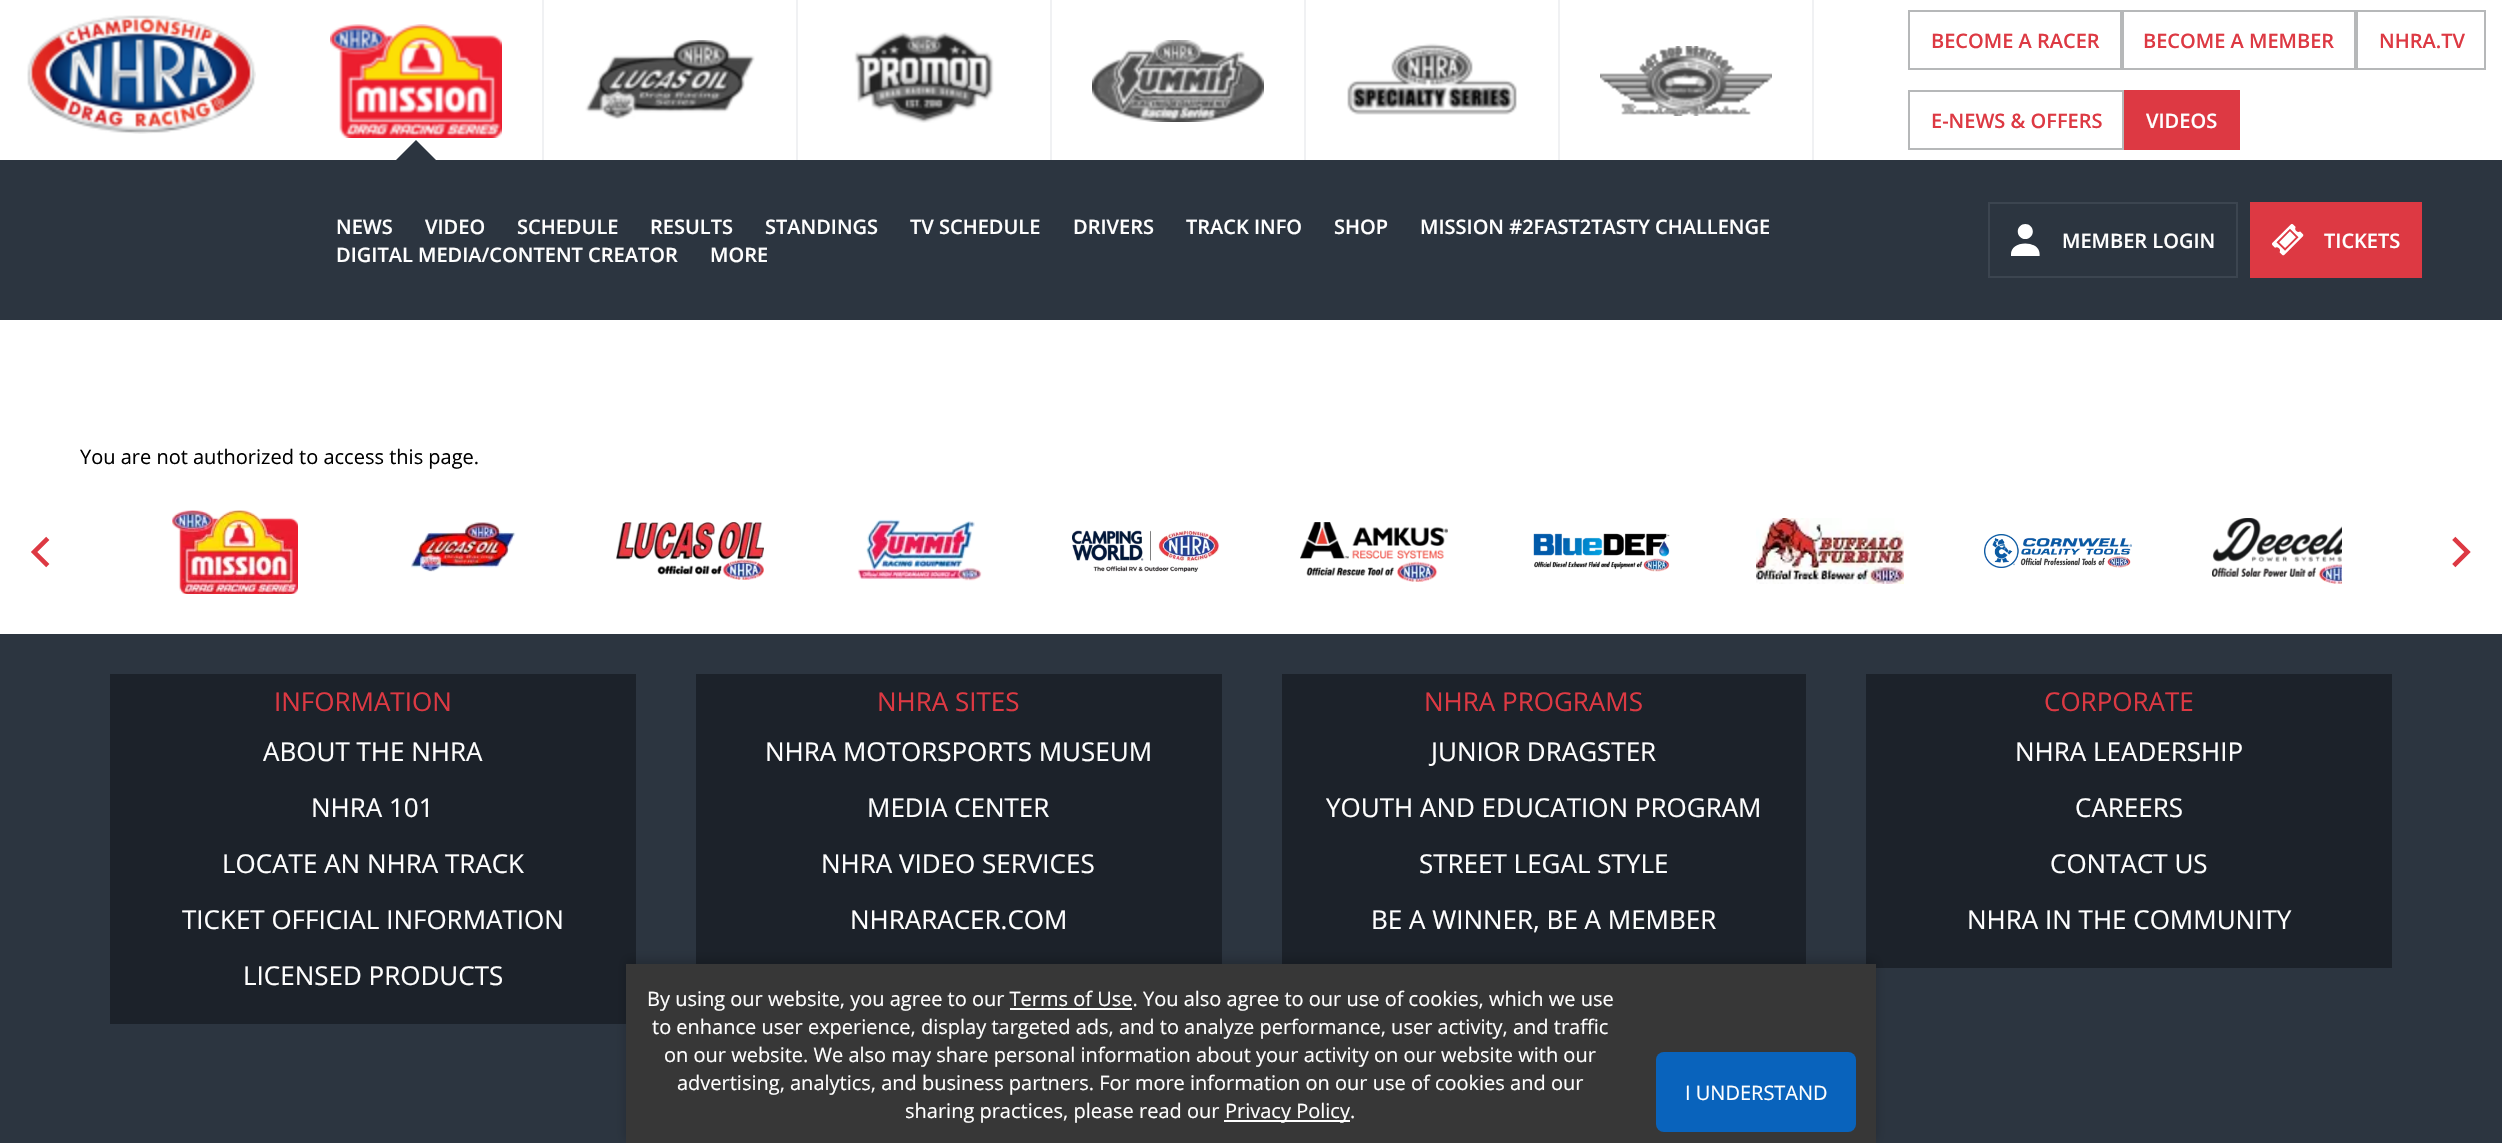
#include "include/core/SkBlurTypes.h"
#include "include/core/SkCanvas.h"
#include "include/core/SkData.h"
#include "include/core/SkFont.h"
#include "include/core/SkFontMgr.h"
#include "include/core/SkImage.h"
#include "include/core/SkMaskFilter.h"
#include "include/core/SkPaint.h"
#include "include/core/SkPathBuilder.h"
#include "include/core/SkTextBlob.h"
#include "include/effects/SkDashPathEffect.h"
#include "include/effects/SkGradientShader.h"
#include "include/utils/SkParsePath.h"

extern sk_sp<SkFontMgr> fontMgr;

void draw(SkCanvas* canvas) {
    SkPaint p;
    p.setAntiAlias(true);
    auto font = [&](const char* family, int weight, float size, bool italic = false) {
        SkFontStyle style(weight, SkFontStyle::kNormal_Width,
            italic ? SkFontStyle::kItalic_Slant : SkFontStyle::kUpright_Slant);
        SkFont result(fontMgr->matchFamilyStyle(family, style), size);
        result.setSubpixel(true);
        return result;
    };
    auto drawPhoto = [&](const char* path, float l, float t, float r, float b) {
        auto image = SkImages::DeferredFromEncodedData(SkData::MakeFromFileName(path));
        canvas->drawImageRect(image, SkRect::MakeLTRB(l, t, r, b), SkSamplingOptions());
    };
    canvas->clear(0xFFFFFFFF);
    p.setColor(0xFF2C3540);
    canvas->drawRect(SkRect::MakeLTRB(0, 160, 2502, 320), p);
    p.setColor(0xFFF0F1F3);
    canvas->drawRect(SkRect::MakeLTRB(542, 0, 544, 160), p);
    drawPhoto("media/1.png", 330, 24, 502, 138);
    p.setColor(0xFF2C3540);
    canvas->drawPath(SkPathBuilder().moveTo(436, 160).lineTo(396, 160).lineTo(416, 140).close().detach(), p);
    p.setColor(0xFFF0F1F3);
    canvas->drawRect(SkRect::MakeLTRB(796, 0, 798, 160), p);
    drawPhoto("media/2.png", 585, 40, 755, 120);
    canvas->drawRect(SkRect::MakeLTRB(1050, 0, 1052, 160), p);
    drawPhoto("media/3.png", 854, 32, 994, 123);
    canvas->drawRect(SkRect::MakeLTRB(1304, 0, 1306, 160), p);
    drawPhoto("media/4.png", 1092, 40, 1264, 122);
    canvas->drawRect(SkRect::MakeLTRB(1558, 0, 1560, 160), p);
    drawPhoto("media/5.png", 1347, 43, 1517, 115);
    canvas->drawRect(SkRect::MakeLTRB(1812, 0, 1814, 160), p);
    drawPhoto("media/6.png", 1600, 46, 1772, 116);
    p.setStyle(SkPaint::kStroke_Style);
    p.setStrokeWidth(2);
    p.setColor(0xFFB6B8B9);
    canvas->drawRect(SkRect::MakeLTRB(1909, 11, 2121, 69), p);
    auto font1 = font("Open Sans", 600, 20);
    p.setStyle(SkPaint::kFill_Style);
    p.setColor(0xFFDD3943);
    canvas->drawString("BECOME A RACER", 1931, 48, font1, p);
    p.setStyle(SkPaint::kStroke_Style);
    p.setColor(0xFFB6B8B9);
    canvas->drawRect(SkRect::MakeLTRB(2123, 11, 2355, 69), p);
    p.setStyle(SkPaint::kFill_Style);
    p.setColor(0xFFDD3943);
    canvas->drawString("BECOME A MEMBER", 2143, 48, font1, p);
    p.setStyle(SkPaint::kStroke_Style);
    p.setColor(0xFFB6B8B9);
    canvas->drawRect(SkRect::MakeLTRB(2357, 11, 2485, 69), p);
    p.setStyle(SkPaint::kFill_Style);
    p.setColor(0xFFDD3943);
    canvas->drawString("NHRA.TV", 2379, 48, font1, p);
    p.setStyle(SkPaint::kStroke_Style);
    p.setColor(0xFFB6B8B9);
    canvas->drawRect(SkRect::MakeLTRB(1909, 91, 2123, 149), p);
    p.setStyle(SkPaint::kFill_Style);
    p.setColor(0xFFDD3943);
    canvas->drawString("E-NEWS & OFFERS", 1931, 128, font1, p);
    canvas->drawRect(SkRect::MakeLTRB(2124, 90, 2240, 150), p);
    p.setColor(0xFFFFFFFF);
    canvas->drawString("VIDEOS", 2146, 128, font1, p);
    drawPhoto("media/7.png", 27, 15, 256, 134);
    {
        const struct { const char* s; float x, y; } items[] = {
            {"NEWS", 336, 234},
            {"VIDEO", 425, 234},
            {"SCHEDULE", 517, 234},
            {"RESULTS", 650, 234},
            {"STANDINGS", 765, 234},
            {"TV SCHEDULE", 910, 234},
            {"DRIVERS", 1073, 234},
            {"TRACK INFO", 1186, 234},
            {"SHOP", 1334, 234},
            {"MISSION #2FAST2TASTY CHALLENGE", 1420, 234},
            {"DIGITAL MEDIA/CONTENT CREATOR", 336, 262},
            {"MORE", 710, 262},
        };
        for (auto [s, x, y] : items) {
            canvas->drawString(s, x, y, font1, p);
        }
    }
    p.setStyle(SkPaint::kStroke_Style);
    p.setColor(0xFF3C4550);
    canvas->drawRect(SkRect::MakeLTRB(1989, 203, 2237, 277), p);
    drawPhoto("media/8.png", 2011, 224, 2040, 256);
    p.setStyle(SkPaint::kFill_Style);
    p.setColor(0xFFFFFFFF);
    canvas->drawString("MEMBER LOGIN", 2062, 248, font1, p);
    p.setColor(0xFFDD3943);
    canvas->drawRect(SkRect::MakeLTRB(2250, 202, 2422, 278), p);
    drawPhoto("media/9.png", 2272, 224, 2304, 256);
    p.setColor(0xFFFFFFFF);
    canvas->drawString("TICKETS", 2324, 248, font1, p);
    auto font2 = font("Open Sans", 400, 20);
    p.setColor(0xFF000000);
    canvas->drawString("You are not authorized to access this page.", 80, 464, font2, p);
    drawPhoto("media/10.png", 31, 536, 50, 568);
    drawPhoto("media/11.png", 172, 510, 298, 594);
    drawPhoto("media/12.png", 411, 522, 516, 572);
    drawPhoto("media/13.png", 616, 522, 764, 580);
    drawPhoto("media/14.png", 857, 519, 982, 581);
    drawPhoto("media/15.png", 1072, 530, 1220, 572);
    drawPhoto("media/16.png", 1300, 522, 1448, 582);
    drawPhoto("media/17.png", 1533, 533, 1670, 572);
    drawPhoto("media/18.png", 1756, 518, 1904, 584);
    drawPhoto("media/19.png", 1984, 534, 2132, 568);
    drawPhoto("media/20.png", 2212, 518, 2342, 584);
    drawPhoto("media/21.png", 2452, 536, 2471, 568);
    p.setColor(0xFF2C3540);
    canvas->drawRect(SkRect::MakeLTRB(0, 634, 2502, 1143), p);
    p.setColor(0xFF1C222A);
    canvas->drawRect(SkRect::MakeLTRB(110, 674, 636, 1024), p);
    auto font3 = font("Open Sans", 400, 26);
    p.setColor(0xFFDD3943);
    canvas->drawString("INFORMATION", 274, 711, font3, p);
    p.setColor(0xFFFFFFFF);
    {
        const struct { const char* s; float x, y; } items[] = {
            {"ABOUT THE NHRA", 263, 761},
            {"NHRA 101", 311, 817},
            {"LOCATE AN NHRA TRACK", 222, 873},
            {"TICKET OFFICIAL INFORMATION", 182, 929},
            {"LICENSED PRODUCTS", 243, 985},
        };
        for (auto [s, x, y] : items) {
            canvas->drawString(s, x, y, font3, p);
        }
    }
    p.setColor(0xFF1C222A);
    canvas->drawRect(SkRect::MakeLTRB(696, 674, 1222, 964), p);
    p.setColor(0xFFDD3943);
    canvas->drawString("NHRA SITES", 877, 711, font3, p);
    p.setColor(0xFFFFFFFF);
    {
        const struct { const char* s; float x, y; } items[] = {
            {"NHRA MOTORSPORTS MUSEUM", 765, 761},
            {"MEDIA CENTER", 867, 817},
            {"NHRA VIDEO SERVICES", 821, 873},
            {"NHRARACER.COM", 850, 929},
        };
        for (auto [s, x, y] : items) {
            canvas->drawString(s, x, y, font3, p);
        }
    }
    p.setColor(0xFF1C222A);
    canvas->drawRect(SkRect::MakeLTRB(1282, 674, 1806, 964), p);
    p.setColor(0xFFDD3943);
    canvas->drawString("NHRA PROGRAMS", 1424, 711, font3, p);
    p.setColor(0xFFFFFFFF);
    {
        const struct { const char* s; float x, y; } items[] = {
            {"JUNIOR DRAGSTER", 1431, 761},
            {"YOUTH AND EDUCATION PROGRAM", 1326, 817},
            {"STREET LEGAL STYLE", 1419, 873},
            {"BE A WINNER, BE A MEMBER", 1371, 929},
        };
        for (auto [s, x, y] : items) {
            canvas->drawString(s, x, y, font3, p);
        }
    }
    p.setColor(0xFF1C222A);
    canvas->drawRect(SkRect::MakeLTRB(1866, 674, 2392, 968), p);
    p.setColor(0xFFDD3943);
    canvas->drawString("CORPORATE", 2044, 711, font3, p);
    p.setColor(0xFFFFFFFF);
    {
        const struct { const char* s; float x, y; } items[] = {
            {"NHRA LEADERSHIP", 2015, 761},
            {"CAREERS", 2075, 817},
            {"CONTACT US", 2050, 873},
            {"NHRA IN THE COMMUNITY", 1967, 929},
        };
        for (auto [s, x, y] : items) {
            canvas->drawString(s, x, y, font3, p);
        }
    }
    p.setColor(0x33000000);
    p.setMaskFilter(SkMaskFilter::MakeBlur(kNormal_SkBlurStyle, 5));
    canvas->drawRect(SkRect::MakeLTRB(626, 960, 1876, 1140), p);
    p.setMaskFilter(nullptr);
    p.setColor(0xFF373737);
    canvas->drawRect(SkRect::MakeLTRB(626, 964, 1876, 1143), p);
    p.setColor(0xFFFFFFFF);
    canvas->drawString("By using our website, you agree to our Terms of Use. You also agree to our use of cookies, which we use", 647, 1006, font2, p);
    canvas->drawRect(SkRect::MakeLTRB(1010, 1008, 1132, 1010), p);
    {
        const struct { const char* s; float x, y; } items[] = {
            {"to enhance user experience, display targeted ads, and to analyze performance, user activity, and traffic", 652, 1034},
            {"on our website. We also may share personal information about your activity on our website with our", 664, 1062},
            {"advertising, analytics, and business partners. For more information on our use of cookies and our", 677, 1090},
            {"sharing practices, please read our", 905, 1118},
        };
        for (auto [s, x, y] : items) {
            canvas->drawString(s, x, y, font2, p);
        }
    }
    canvas->drawRect(SkRect::MakeLTRB(1224, 1120, 1350, 1122), p);
    canvas->drawString("Privacy Policy.", 1225, 1118, font2, p);
    p.setColor(0xFF0963BC);
    canvas->drawRoundRect(SkRect::MakeLTRB(1656, 1052, 1856, 1132), 8, 8, p);
    p.setColor(0xFFFFFFFF);
    canvas->drawString("I UNDERSTAND", 1685, 1100, font2, p);
}
